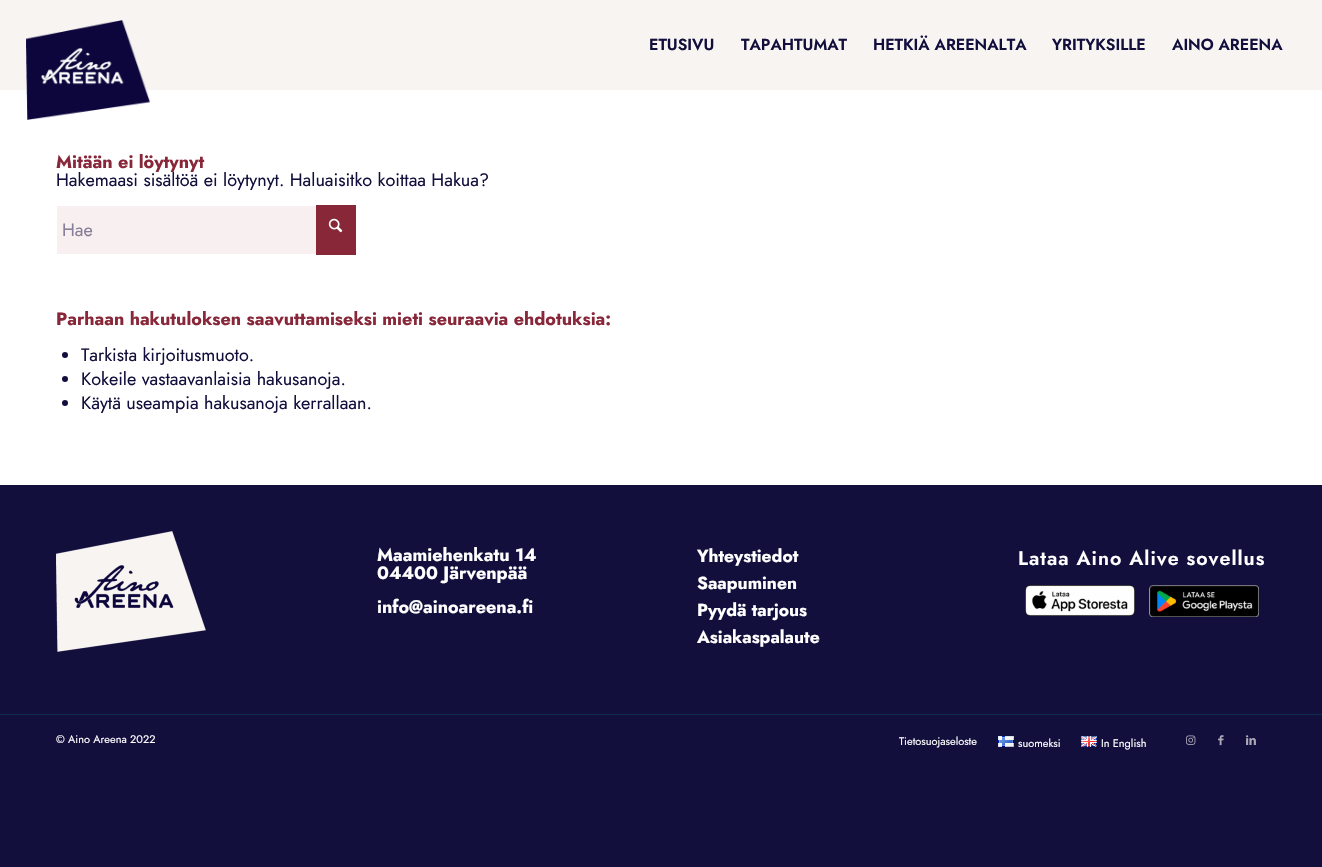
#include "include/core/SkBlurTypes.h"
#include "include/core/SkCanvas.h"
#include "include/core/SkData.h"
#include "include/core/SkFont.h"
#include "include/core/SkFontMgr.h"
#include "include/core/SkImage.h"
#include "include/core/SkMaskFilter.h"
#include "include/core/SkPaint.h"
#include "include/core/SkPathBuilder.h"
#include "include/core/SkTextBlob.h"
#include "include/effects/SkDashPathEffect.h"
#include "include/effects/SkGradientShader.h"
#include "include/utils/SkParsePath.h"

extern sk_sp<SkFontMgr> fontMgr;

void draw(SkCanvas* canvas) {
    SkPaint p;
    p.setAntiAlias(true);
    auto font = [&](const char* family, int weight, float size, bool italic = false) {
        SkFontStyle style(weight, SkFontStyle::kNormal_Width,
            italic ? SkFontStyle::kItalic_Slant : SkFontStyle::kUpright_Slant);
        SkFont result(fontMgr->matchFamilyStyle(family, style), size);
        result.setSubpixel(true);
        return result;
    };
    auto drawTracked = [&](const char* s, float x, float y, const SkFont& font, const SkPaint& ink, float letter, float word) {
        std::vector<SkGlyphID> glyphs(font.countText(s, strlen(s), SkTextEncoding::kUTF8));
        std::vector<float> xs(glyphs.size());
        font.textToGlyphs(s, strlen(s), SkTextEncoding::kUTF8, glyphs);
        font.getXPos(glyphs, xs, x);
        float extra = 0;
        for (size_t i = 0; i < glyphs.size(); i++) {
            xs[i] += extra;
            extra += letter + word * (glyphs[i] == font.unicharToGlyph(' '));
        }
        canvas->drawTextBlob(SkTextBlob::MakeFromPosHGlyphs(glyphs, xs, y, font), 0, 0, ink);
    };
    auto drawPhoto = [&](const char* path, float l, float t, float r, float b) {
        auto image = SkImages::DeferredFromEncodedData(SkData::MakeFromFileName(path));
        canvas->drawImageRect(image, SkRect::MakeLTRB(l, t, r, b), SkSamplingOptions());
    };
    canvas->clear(0xFF130F3D);
    p.setColor(0xFFF7F4F1);
    canvas->drawRect(SkRect::MakeLTRB(0, 0, 1322, 90), p);
    p.setColor(0xFFFFFFFF);
    canvas->drawRect(SkRect::MakeLTRB(0, 90, 1322, 485), p);
    drawPhoto("media/1.png", 26, 20, 150, 120);
    auto font1 = font("Jost", 600, 16);
    p.setColor(0xFF130F3D);
    {
        const struct { const char* s; float x, y; } items[] = {
            {"ETUSIVU", 649, 50},
            {"TAPAHTUMAT", 741, 50},
            {"HETKIÄ AREENALTA", 873, 50},
            {"YRITYKSILLE", 1052, 50},
            {"AINO AREENA", 1172, 50},
        };
        for (auto [s, x, y] : items) {
            canvas->drawString(s, x, y, font1, p);
        }
    }
    auto font2 = font("Jost", 700, 18);
    p.setColor(0xFF882739);
    canvas->drawString("Mitään ei löytynyt", 56, 168, font2, p);
    auto font3 = font("Jost", 400, 18);
    p.setColor(0xFF130F3D);
    canvas->drawString("Hakemaasi sisältöä ei löytynyt. Haluaisitko koittaa Hakua?", 56, 186, font3, p);
    p.setColor(0xFF882738);
    canvas->drawRect(SkRect::MakeLTRB(316, 205, 356, 255), p);
    p.setColor(0xFFF8EFF0);
    canvas->drawRect(SkRect::MakeLTRB(57, 206, 316, 254), p);
    p.setColor(0xFF867F97);
    canvas->drawString("Hae", 62, 236, font3, p);
    drawPhoto("media/2.png", 328, 218, 343, 233);
    p.setColor(0xFF882739);
    canvas->drawString("Parhaan hakutuloksen saavuttamiseksi mieti seuraavia ehdotuksia:", 56, 325, font2, p);
    p.setColor(0xFF130F3D);
    canvas->drawCircle(65, 355, 3, p);
    canvas->drawString("Tarkista kirjoitusmuoto.", 81, 361, font3, p);
    canvas->drawCircle(65, 379, 3, p);
    canvas->drawString("Kokeile vastaavanlaisia hakusanoja.", 81, 385, font3, p);
    canvas->drawCircle(65, 403, 3, p);
    canvas->drawString("Käytä useampia hakusanoja kerrallaan.", 81, 409, font3, p);
    drawPhoto("media/3.png", 56, 531, 206, 652);
    p.setColor(0xFFFFFFFF);
    {
        const struct { const char* s; float x, y; } items[] = {
            {"Maamiehenkatu 14", 377, 561},
            {"04400 Järvenpää", 377, 579},
            {"info@ainoareena.fi", 377, 613},
        };
        for (auto [s, x, y] : items) {
            canvas->drawString(s, x, y, font2, p);
        }
    }
    auto font4 = font("Jost", 700, 17.5f);
    {
        const struct { const char* s; float x, y; } items[] = {
            {"Yhteystiedot", 697, 562},
            {"Saapuminen", 697, 589},
            {"Pyydä tarjous", 697, 616},
            {"Asiakaspalaute", 697, 643},
        };
        for (auto [s, x, y] : items) {
            canvas->drawString(s, x, y, font4, p);
        }
    }
    auto font5 = font("Jost", 600, 19.75f);
    drawTracked("Lataa Aino Alive sovellus", 1018, 565, font5, p, 1, 0);
    drawPhoto("media/4.png", 1025, 585, 1135, 616);
    drawPhoto("media/5.png", 1149, 585, 1259, 617);
    p.setColor(0xFF0E2D4F);
    canvas->drawRect(SkRect::MakeLTRB(0, 714, 1322, 715), p);
    auto font6 = font("Jost", 400, 11);
    p.setColor(0xFFFFFFFF);
    canvas->drawString("© Aino Areena 2022", 56, 743, font6, p);
    canvas->drawString("Tietosuojaseloste", 899, 745, font6, p);
    drawPhoto("media/6.png", 998, 736, 1014, 747);
    canvas->drawString("suomeksi", 1018, 747, font6, p);
    drawPhoto("media/7.png", 1081, 736, 1097, 747);
    canvas->drawString("In English", 1101, 747, font6, p);
    drawPhoto("media/8.png", 1186, 735, 1196, 745);
    drawPhoto("media/9.png", 1218, 735, 1224, 746);
    drawPhoto("media/10.png", 1246, 735, 1256, 745);
}
